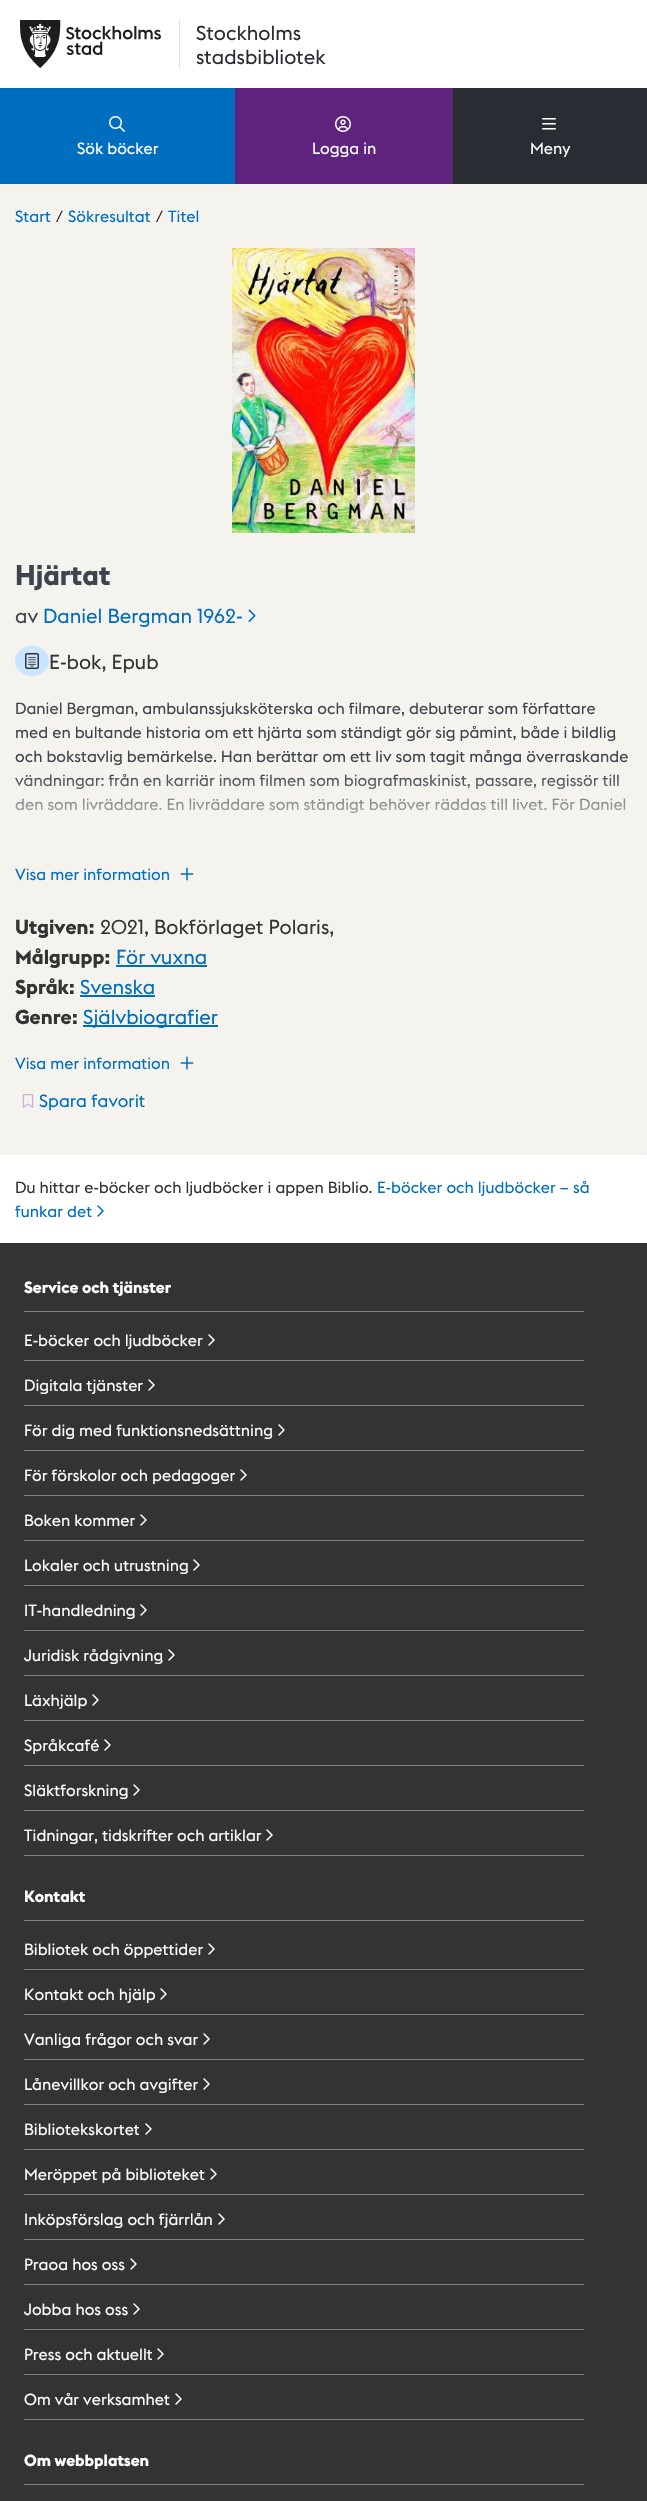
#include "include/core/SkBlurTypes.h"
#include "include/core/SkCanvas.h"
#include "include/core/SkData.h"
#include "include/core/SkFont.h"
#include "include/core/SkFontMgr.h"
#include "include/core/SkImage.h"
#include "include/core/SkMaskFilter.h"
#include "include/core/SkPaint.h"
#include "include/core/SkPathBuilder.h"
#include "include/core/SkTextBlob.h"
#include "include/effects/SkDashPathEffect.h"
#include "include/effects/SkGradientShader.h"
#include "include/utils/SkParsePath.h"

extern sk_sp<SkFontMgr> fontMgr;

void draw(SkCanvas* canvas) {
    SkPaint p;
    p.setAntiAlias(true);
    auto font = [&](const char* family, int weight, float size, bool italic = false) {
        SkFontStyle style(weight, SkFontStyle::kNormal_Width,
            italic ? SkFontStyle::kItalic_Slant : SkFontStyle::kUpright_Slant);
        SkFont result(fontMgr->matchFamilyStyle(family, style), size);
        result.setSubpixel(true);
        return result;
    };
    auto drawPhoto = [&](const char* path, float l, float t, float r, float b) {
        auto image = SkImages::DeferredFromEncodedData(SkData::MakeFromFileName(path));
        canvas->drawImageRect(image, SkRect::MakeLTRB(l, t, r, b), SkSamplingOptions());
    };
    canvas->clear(0xFFF5F3EE);
    p.setColor(0xFFFFFFFF);
    canvas->drawRect(SkRect::MakeLTRB(0, 0, 647, 88), p);
    p.setColor(0xFFE5E2DB);
    canvas->drawRect(SkRect::MakeLTRB(179, 20, 180, 68), p);
    drawPhoto("media/1.png", 20, 20, 161, 68);
    auto font1 = font("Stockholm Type", 400, 20);
    p.setColor(0xFF282D33);
    canvas->drawString("Stockholms", 196, 40, font1, p);
    canvas->drawString("stadsbibliotek", 196, 64, font1, p);
    p.setColor(0xFF006EBF);
    canvas->drawRect(SkRect::MakeLTRB(0, 88, 235, 184), p);
    drawPhoto("media/2.png", 109, 116, 125, 132);
    auto font2 = font("Stockholm Type", 400, 16);
    p.setColor(0xFFFFFFFF);
    canvas->drawString("Sök böcker", 77, 154, font2, p);
    p.setColor(0xFF5D237D);
    canvas->drawRect(SkRect::MakeLTRB(235, 88, 453, 184), p);
    drawPhoto("media/3.png", 335, 116, 351, 132);
    p.setColor(0xFFFFFFFF);
    canvas->drawString("Logga in", 312, 154, font2, p);
    p.setColor(0xFF282D33);
    canvas->drawRect(SkRect::MakeLTRB(453, 88, 647, 184), p);
    drawPhoto("media/4.png", 542, 118, 556, 130);
    p.setColor(0xFFFFFFFF);
    canvas->drawString("Meny", 530, 154, font2, p);
    p.setColor(0xFF006EBF);
    canvas->drawString("Start", 15, 222, font2, p);
    p.setColor(0xFF333333);
    canvas->drawString("/", 56, 222, font2, p);
    p.setColor(0xFF006EBF);
    canvas->drawString("Sökresultat", 68, 222, font2, p);
    p.setColor(0xFF333333);
    canvas->drawString("/", 156, 222, font2, p);
    p.setColor(0xFF006EBF);
    canvas->drawString("Titel", 168, 222, font2, p);
    drawPhoto("media/5.png", 232, 248, 415, 533);
    auto font3 = font("Stockholm Type", 700, 28);
    p.setColor(0xFF3C444D);
    canvas->drawString("Hjärtat", 15, 585, font3, p);
    canvas->drawString("av", 15, 623, font1, p);
    p.setColor(0xFF006EBF);
    canvas->drawString("Daniel Bergman 1962-", 43, 623, font1, p);
    drawPhoto("media/6.png", 248, 609, 256, 622);
    p.setColor(0xFFCAE5FF);
    canvas->drawOval(SkRect::MakeLTRB(15, 646, 49, 676), p);
    drawPhoto("media/7.png", 25, 653, 39, 669);
    drawPhoto("media/8.png", 28, 657, 36, 665);
    p.setColor(0xFF333333);
    canvas->drawString("E-bok, Epub", 49, 669, font1, p);
    p.setColor(0xFF3C444D);
    {
        const struct { const char* s; float x, y; } items[] = {
            {"Daniel Bergman, ambulanssjuksköterska och filmare, debuterar som författare", 15, 714},
            {"med en bultande historia om ett hjärta som ständigt gör sig påmint, både i bildlig", 15, 738},
            {"och bokstavlig bemärkelse. Han berättar om ett liv som tagit många överraskande", 15, 762},
            {"vändningar: från en karriär inom filmen som biografmaskinist, passare, regissör till", 15, 786},
            {"den som livräddare. En livräddare som ständigt behöver räddas till livet. För Daniel", 15, 810},
        };
        for (auto [s, x, y] : items) {
            canvas->drawString(s, x, y, font2, p);
        }
    }
    {
        const SkColor colors[] = {0x00F5F3EE, 0xFFF5F3EE};
        const float stops[] = {0.5f, 1};
        const SkPoint ends[] = {{324, 696}, {324, 847}};
        p.setShader(SkGradientShader::MakeLinear(ends, colors, stops, 2, SkTileMode::kClamp));
        p.setAlpha(255);
    }
    canvas->drawRect(SkRect::MakeLTRB(15, 774, 626, 814), p);
    p.setShader(nullptr);
    p.setColor(0xFF006EBF);
    canvas->drawString("Visa mer information", 15, 880, font2, p);
    drawPhoto("media/9.png", 180, 867, 194, 881);
    auto font4 = font("Stockholm Type", 700, 20);
    p.setColor(0xFF333333);
    canvas->drawString("Utgiven:", 15, 934, font4, p);
    canvas->drawString("2021, Bokförlaget Polaris,", 100, 934, font1, p);
    canvas->drawString("Målgrupp:", 15, 964, font4, p);
    p.setColor(0xFF006EBF);
    canvas->drawString("För vuxna", 116, 964, font1, p);
    canvas->drawRect(SkRect::MakeLTRB(116, 965, 207, 967), p);
    p.setColor(0xFF333333);
    canvas->drawString("Språk:", 15, 994, font4, p);
    p.setColor(0xFF006EBF);
    canvas->drawString("Svenska", 80, 994, font1, p);
    canvas->drawRect(SkRect::MakeLTRB(80, 995, 155, 997), p);
    p.setColor(0xFF333333);
    canvas->drawString("Genre:", 15, 1024, font4, p);
    p.setColor(0xFF006EBF);
    canvas->drawRect(SkRect::MakeLTRB(83, 1025, 218, 1027), p);
    canvas->drawString("Självbiografier", 83, 1024, font1, p);
    canvas->drawString("Visa mer information", 15, 1069, font2, p);
    drawPhoto("media/9.png", 180, 1056, 194, 1070);
    drawPhoto("media/10.png", 22, 1094, 34, 1108);
    auto font5 = font("Stockholm Type", 400, 17.5f);
    canvas->drawString("Spara favorit", 39, 1107, font5, p);
    p.setColor(0xFFFFFFFF);
    canvas->drawRect(SkRect::MakeLTRB(0, 1155, 647, 1243), p);
    p.setColor(0xFF006EBF);
    canvas->drawString("E-böcker och ljudböcker – så", 377, 1193, font2, p);
    canvas->drawString("funkar det", 15, 1217, font2, p);
    drawPhoto("media/11.png", 97, 1205, 104, 1217);
    p.setColor(0xFF333333);
    canvas->drawString("Du hittar e-böcker och ljudböcker i appen Biblio.", 15, 1193, font2, p);
    canvas->drawRect(SkRect::MakeLTRB(0, 1243, 647, 2501), p);
    p.setColor(0xFF808080);
    canvas->drawRect(SkRect::MakeLTRB(24, 1311, 584, 1312), p);
    auto font6 = font("Stockholm Type", 700, 16);
    p.setColor(0xFFFFFFFF);
    canvas->drawString("Service och tjänster", 24, 1293, font6, p);
    p.setColor(0xFF808080);
    canvas->drawRect(SkRect::MakeLTRB(24, 1360, 584, 1361), p);
    p.setColor(0xFFFFFFFF);
    canvas->drawString("E-böcker och ljudböcker", 24, 1346, font2, p);
    drawPhoto("media/12.png", 208, 1334, 215, 1346);
    p.setColor(0xFF808080);
    canvas->drawRect(SkRect::MakeLTRB(24, 1405, 584, 1406), p);
    p.setColor(0xFFFFFFFF);
    canvas->drawString("Digitala tjänster", 24, 1391, font2, p);
    drawPhoto("media/12.png", 148, 1379, 155, 1391);
    p.setColor(0xFF808080);
    canvas->drawRect(SkRect::MakeLTRB(24, 1450, 584, 1451), p);
    p.setColor(0xFFFFFFFF);
    canvas->drawString("För dig med funktionsnedsättning", 24, 1436, font2, p);
    drawPhoto("media/12.png", 278, 1424, 285, 1436);
    p.setColor(0xFF808080);
    canvas->drawRect(SkRect::MakeLTRB(24, 1495, 584, 1496), p);
    p.setColor(0xFFFFFFFF);
    canvas->drawString("För förskolor och pedagoger", 24, 1481, font2, p);
    drawPhoto("media/12.png", 240, 1469, 247, 1481);
    p.setColor(0xFF808080);
    canvas->drawRect(SkRect::MakeLTRB(24, 1540, 584, 1541), p);
    p.setColor(0xFFFFFFFF);
    canvas->drawString("Boken kommer", 24, 1526, font2, p);
    drawPhoto("media/12.png", 140, 1514, 147, 1526);
    p.setColor(0xFF808080);
    canvas->drawRect(SkRect::MakeLTRB(24, 1585, 584, 1586), p);
    p.setColor(0xFFFFFFFF);
    canvas->drawString("Lokaler och utrustning", 24, 1571, font2, p);
    drawPhoto("media/12.png", 193, 1559, 200, 1571);
    p.setColor(0xFF808080);
    canvas->drawRect(SkRect::MakeLTRB(24, 1630, 584, 1631), p);
    p.setColor(0xFFFFFFFF);
    canvas->drawString("IT-handledning", 24, 1616, font2, p);
    drawPhoto("media/12.png", 140, 1604, 147, 1616);
    p.setColor(0xFF808080);
    canvas->drawRect(SkRect::MakeLTRB(24, 1675, 584, 1676), p);
    p.setColor(0xFFFFFFFF);
    canvas->drawString("Juridisk rådgivning", 24, 1661, font2, p);
    drawPhoto("media/12.png", 168, 1649, 175, 1661);
    p.setColor(0xFF808080);
    canvas->drawRect(SkRect::MakeLTRB(24, 1720, 584, 1721), p);
    p.setColor(0xFFFFFFFF);
    canvas->drawString("Läxhjälp", 24, 1706, font2, p);
    drawPhoto("media/12.png", 92, 1694, 99, 1706);
    p.setColor(0xFF808080);
    canvas->drawRect(SkRect::MakeLTRB(24, 1765, 584, 1766), p);
    p.setColor(0xFFFFFFFF);
    canvas->drawString("Språkcafé", 24, 1751, font2, p);
    drawPhoto("media/12.png", 104, 1739, 111, 1751);
    p.setColor(0xFF808080);
    canvas->drawRect(SkRect::MakeLTRB(24, 1810, 584, 1811), p);
    p.setColor(0xFFFFFFFF);
    canvas->drawString("Släktforskning", 24, 1796, font2, p);
    drawPhoto("media/12.png", 133, 1784, 140, 1796);
    p.setColor(0xFF808080);
    canvas->drawRect(SkRect::MakeLTRB(24, 1855, 584, 1856), p);
    p.setColor(0xFFFFFFFF);
    canvas->drawString("Tidningar, tidskrifter och artiklar", 24, 1841, font2, p);
    drawPhoto("media/12.png", 266, 1829, 273, 1841);
    p.setColor(0xFF808080);
    canvas->drawRect(SkRect::MakeLTRB(24, 1920, 584, 1921), p);
    p.setColor(0xFFFFFFFF);
    canvas->drawString("Kontakt", 24, 1902, font6, p);
    p.setColor(0xFF808080);
    canvas->drawRect(SkRect::MakeLTRB(24, 1969, 584, 1970), p);
    p.setColor(0xFFFFFFFF);
    canvas->drawString("Bibliotek och öppettider", 24, 1955, font2, p);
    drawPhoto("media/12.png", 208, 1943, 215, 1955);
    p.setColor(0xFF808080);
    canvas->drawRect(SkRect::MakeLTRB(24, 2014, 584, 2015), p);
    p.setColor(0xFFFFFFFF);
    canvas->drawString("Kontakt och hjälp", 24, 2000, font2, p);
    drawPhoto("media/12.png", 160, 1988, 167, 2000);
    p.setColor(0xFF808080);
    canvas->drawRect(SkRect::MakeLTRB(24, 2059, 584, 2060), p);
    p.setColor(0xFFFFFFFF);
    canvas->drawString("Vanliga frågor och svar", 24, 2045, font2, p);
    drawPhoto("media/12.png", 203, 2033, 210, 2045);
    p.setColor(0xFF808080);
    canvas->drawRect(SkRect::MakeLTRB(24, 2104, 584, 2105), p);
    p.setColor(0xFFFFFFFF);
    canvas->drawString("Lånevillkor och avgifter", 24, 2090, font2, p);
    drawPhoto("media/12.png", 203, 2078, 210, 2090);
    p.setColor(0xFF808080);
    canvas->drawRect(SkRect::MakeLTRB(24, 2149, 584, 2150), p);
    p.setColor(0xFFFFFFFF);
    canvas->drawString("Bibliotekskortet", 24, 2135, font2, p);
    drawPhoto("media/12.png", 145, 2123, 152, 2135);
    p.setColor(0xFF808080);
    canvas->drawRect(SkRect::MakeLTRB(24, 2194, 584, 2195), p);
    p.setColor(0xFFFFFFFF);
    canvas->drawString("Meröppet på biblioteket", 24, 2180, font2, p);
    drawPhoto("media/12.png", 210, 2168, 217, 2180);
    p.setColor(0xFF808080);
    canvas->drawRect(SkRect::MakeLTRB(24, 2239, 584, 2240), p);
    p.setColor(0xFFFFFFFF);
    canvas->drawString("Inköpsförslag och fjärrlån", 24, 2225, font2, p);
    drawPhoto("media/12.png", 218, 2213, 225, 2225);
    p.setColor(0xFF808080);
    canvas->drawRect(SkRect::MakeLTRB(24, 2284, 584, 2285), p);
    p.setColor(0xFFFFFFFF);
    canvas->drawString("Praoa hos oss", 24, 2270, font2, p);
    drawPhoto("media/12.png", 130, 2258, 137, 2270);
    p.setColor(0xFF808080);
    canvas->drawRect(SkRect::MakeLTRB(24, 2329, 584, 2330), p);
    p.setColor(0xFFFFFFFF);
    canvas->drawString("Jobba hos oss", 24, 2315, font2, p);
    drawPhoto("media/12.png", 133, 2303, 140, 2315);
    p.setColor(0xFF808080);
    canvas->drawRect(SkRect::MakeLTRB(24, 2374, 584, 2375), p);
    p.setColor(0xFFFFFFFF);
    canvas->drawString("Press och aktuellt", 24, 2360, font2, p);
    drawPhoto("media/12.png", 157, 2348, 164, 2360);
    p.setColor(0xFF808080);
    canvas->drawRect(SkRect::MakeLTRB(24, 2419, 584, 2420), p);
    p.setColor(0xFFFFFFFF);
    canvas->drawString("Om vår verksamhet", 24, 2405, font2, p);
    drawPhoto("media/12.png", 175, 2393, 182, 2405);
    p.setColor(0xFF808080);
    canvas->drawRect(SkRect::MakeLTRB(24, 2484, 584, 2485), p);
    p.setColor(0xFFFFFFFF);
    canvas->drawString("Om webbplatsen", 24, 2466, font6, p);
}
